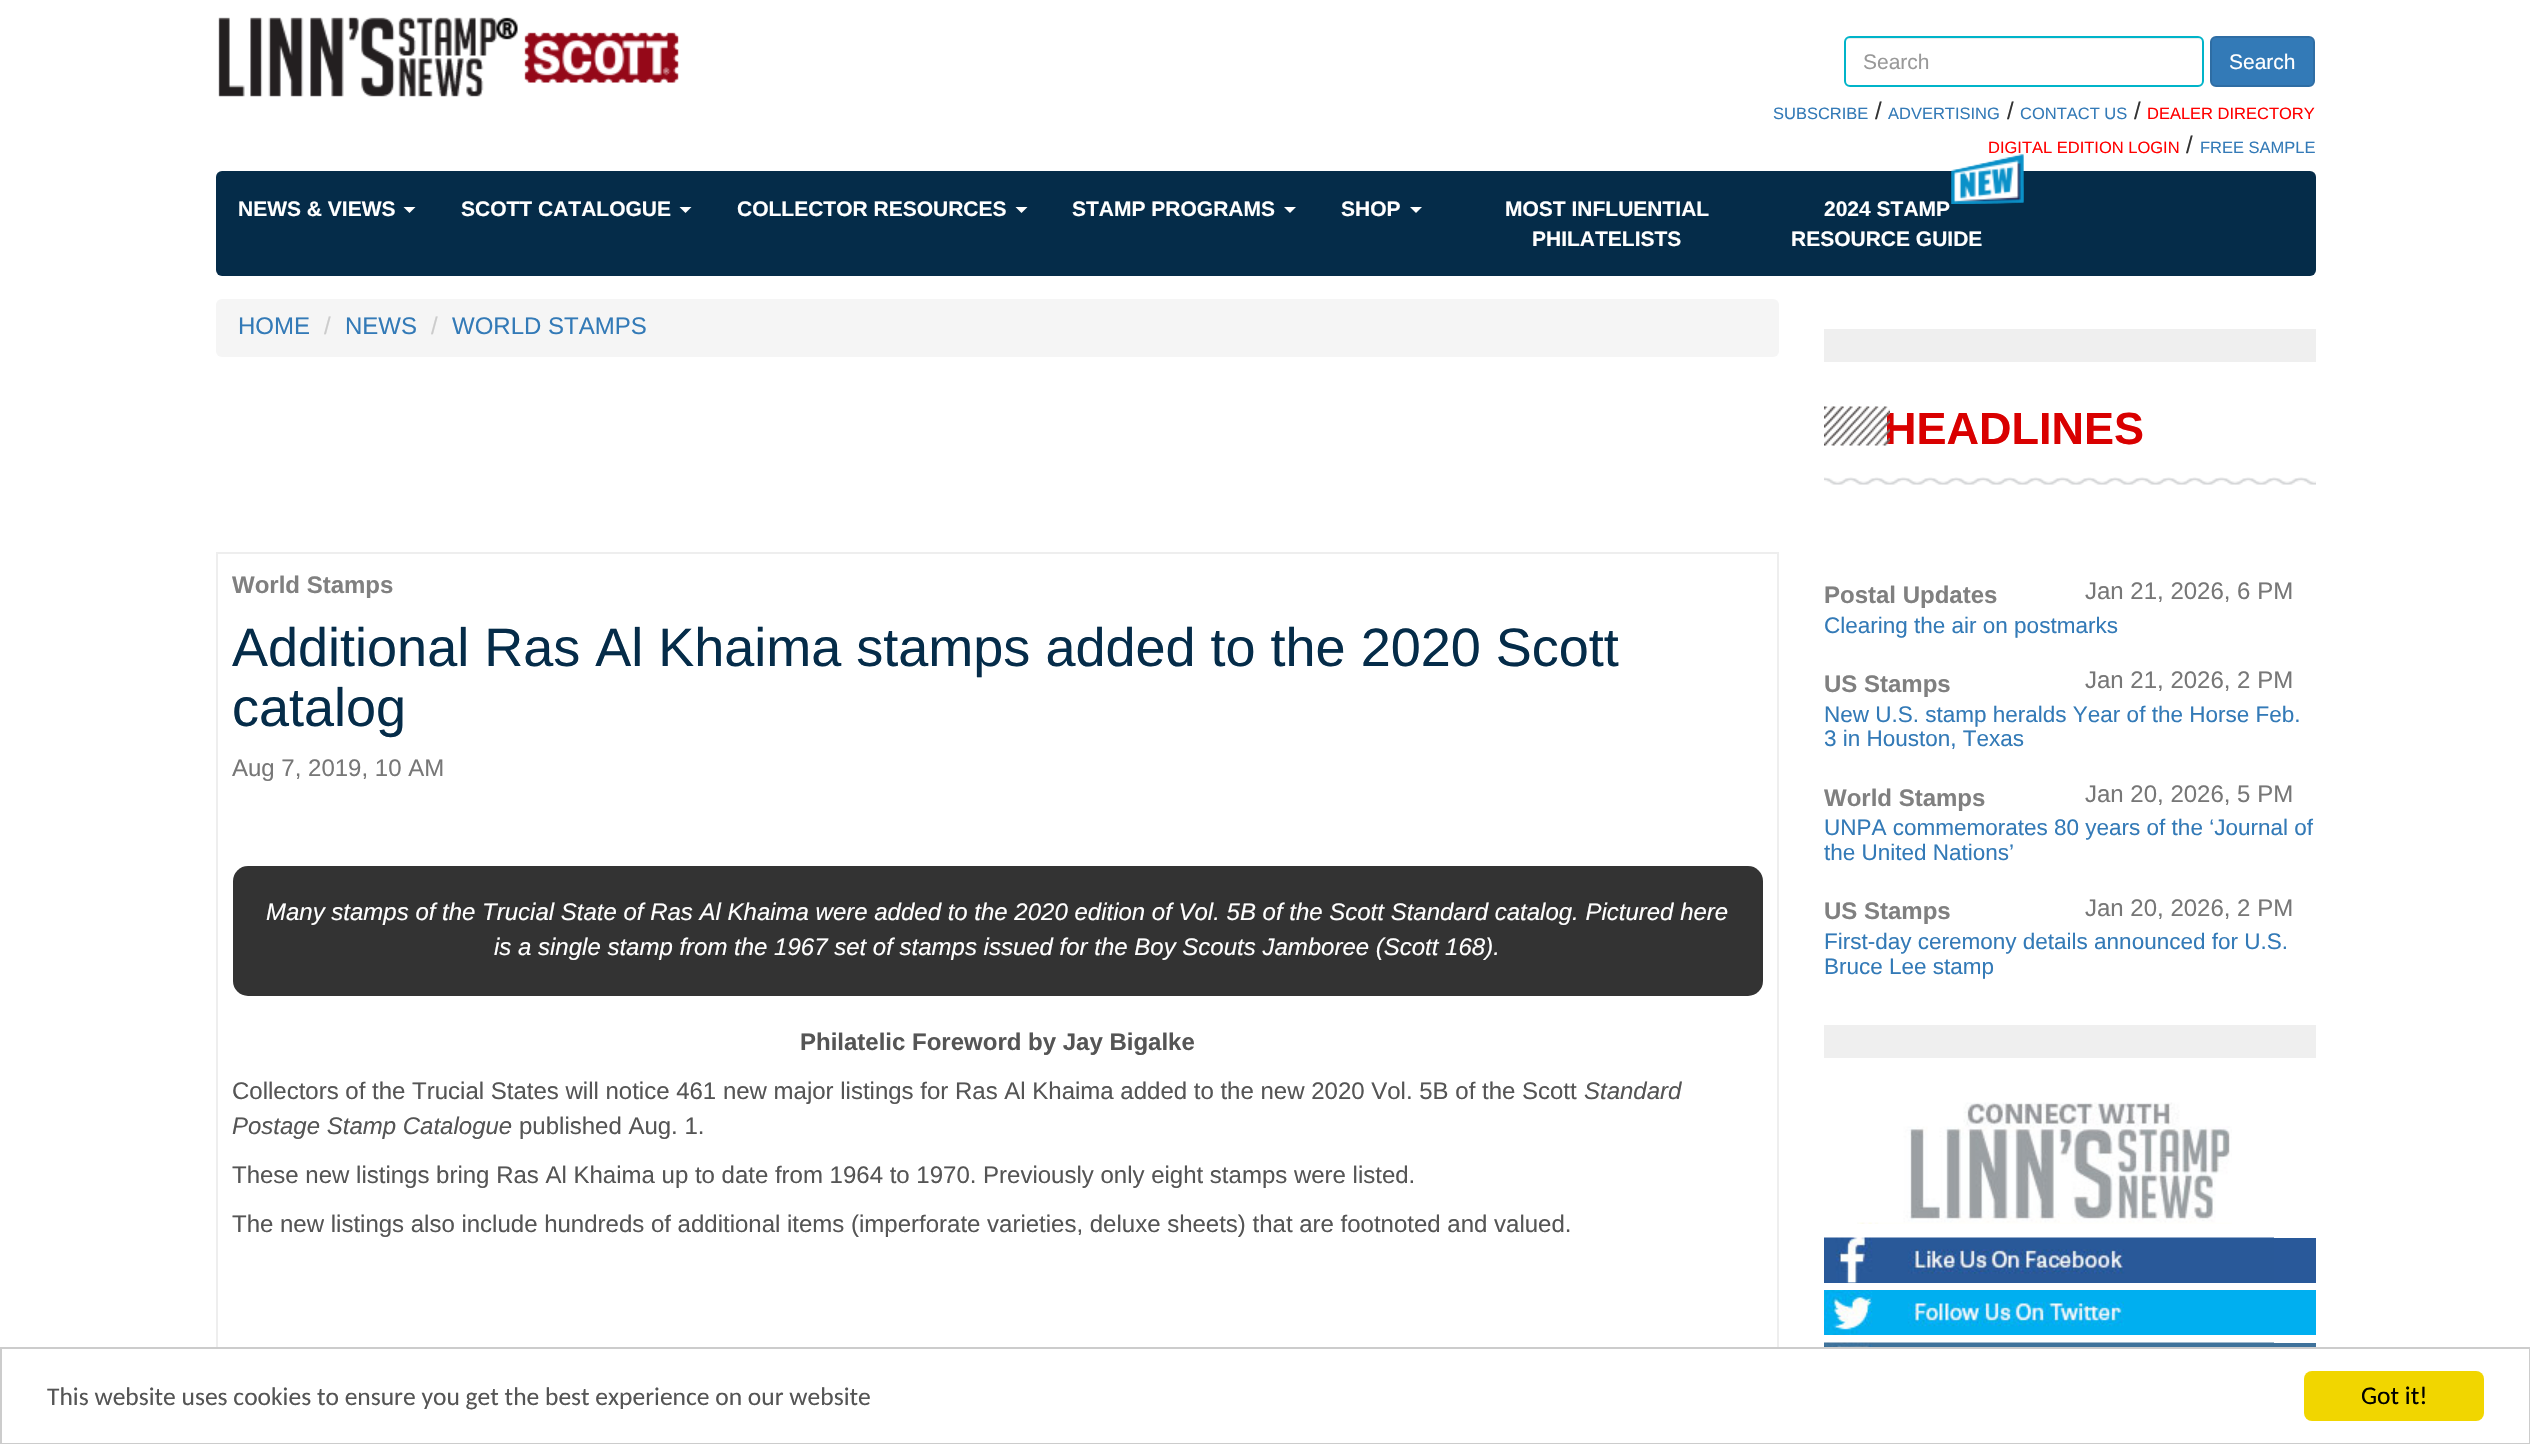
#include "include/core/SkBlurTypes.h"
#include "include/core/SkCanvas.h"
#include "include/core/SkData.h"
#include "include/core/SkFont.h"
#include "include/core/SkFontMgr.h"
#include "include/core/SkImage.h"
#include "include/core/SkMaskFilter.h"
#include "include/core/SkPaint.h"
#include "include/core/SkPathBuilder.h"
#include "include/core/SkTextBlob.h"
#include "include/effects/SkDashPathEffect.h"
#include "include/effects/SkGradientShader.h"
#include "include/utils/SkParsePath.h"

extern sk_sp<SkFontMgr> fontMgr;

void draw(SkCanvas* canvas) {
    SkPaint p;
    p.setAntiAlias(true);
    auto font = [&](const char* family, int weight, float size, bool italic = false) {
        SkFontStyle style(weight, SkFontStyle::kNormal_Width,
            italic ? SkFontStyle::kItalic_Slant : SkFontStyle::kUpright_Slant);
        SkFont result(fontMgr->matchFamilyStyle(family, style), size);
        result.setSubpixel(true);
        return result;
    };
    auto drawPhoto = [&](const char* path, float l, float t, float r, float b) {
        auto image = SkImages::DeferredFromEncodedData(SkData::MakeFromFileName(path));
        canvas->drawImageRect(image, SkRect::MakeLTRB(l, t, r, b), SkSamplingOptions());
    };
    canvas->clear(0xFFFFFFFF);
    drawPhoto("media/1.png", 218, 16, 679, 97);
    p.setColor(0xFFECECEC);
    canvas->drawPath(SkPathBuilder().moveTo(1850, 39).lineTo(2198, 39).cubicTo(2200, 39, 2202, 41, 2202, 44).cubicTo(2202, 41, 2200, 38, 2197, 38).lineTo(1850, 38).cubicTo(1847, 38, 1845, 41, 1845, 44).cubicTo(1845, 41, 1847, 39, 1850, 39).close().detach(), p);
    p.setStyle(SkPaint::kStroke_Style);
    p.setStrokeWidth(2);
    p.setColor(0xFF00B4C9);
    canvas->drawRoundRect(SkRect::MakeLTRB(1845, 37, 2203, 86), 5, 5, p);
    auto font1 = font("Liberation Sans", 400, 21);
    p.setStyle(SkPaint::kFill_Style);
    p.setColor(0xFF999999);
    canvas->drawString("Search", 1863, 69, font1, p);
    p.setColor(0xFF337AB7);
    canvas->drawRoundRect(SkRect::MakeLTRB(2211, 37, 2314, 86), 5, 5, p);
    p.setStyle(SkPaint::kStroke_Style);
    p.setColor(0xFF2E6DA4);
    canvas->drawRoundRect(SkRect::MakeLTRB(2211, 37, 2314, 86), 5, 5, p);
    p.setStyle(SkPaint::kFill_Style);
    p.setColor(0xFFFFFFFF);
    canvas->drawString("Search", 2229, 69, font1, p);
    auto font2 = font("Liberation Sans", 400, 16.5f);
    p.setColor(0xFF337AB7);
    canvas->drawString("SUBSCRIBE", 1773, 119, font2, p);
    auto font3 = font("Liberation Sans", 400, 24);
    p.setColor(0xFF333333);
    canvas->drawString("/", 1875, 119, font3, p);
    p.setColor(0xFF337AB7);
    canvas->drawString("ADVERTISING", 1888, 119, font2, p);
    p.setColor(0xFF333333);
    canvas->drawString("/", 2007, 119, font3, p);
    p.setColor(0xFF337AB7);
    canvas->drawString("CONTACT US", 2020, 119, font2, p);
    p.setColor(0xFF333333);
    canvas->drawString("/", 2134, 119, font3, p);
    p.setColor(0xFFFF0000);
    canvas->drawString("DEALER DIRECTORY", 2147, 119, font2, p);
    canvas->drawString("DIGITAL EDITION LOGIN", 1988, 153, font2, p);
    p.setColor(0xFF333333);
    canvas->drawString("/", 2186, 153, font3, p);
    p.setColor(0xFF337AB7);
    canvas->drawString("FREE SAMPLE", 2200, 153, font2, p);
    p.setColor(0xFF052C49);
    canvas->drawRoundRect(SkRect::MakeLTRB(216, 171, 2316, 276), 6, 6, p);
    auto font4 = font("Liberation Sans", 700, 21);
    p.setColor(0xFFFFFFFF);
    canvas->drawString("NEWS & VIEWS", 238, 216, font4, p);
    canvas->drawPath(SkPathBuilder().moveTo(403.5f, 207).lineTo(415.5f, 207).lineTo(409.5f, 213).close().detach(), p);
    canvas->drawString("SCOTT CATALOGUE", 461, 216, font4, p);
    canvas->drawPath(SkPathBuilder().moveTo(679.5f, 207).lineTo(691.5f, 207).lineTo(685.5f, 213).close().detach(), p);
    canvas->drawString("COLLECTOR RESOURCES", 737, 216, font4, p);
    canvas->drawPath(SkPathBuilder().moveTo(1015.5f, 207).lineTo(1027.5f, 207).lineTo(1021.5f, 213).close().detach(), p);
    canvas->drawString("STAMP PROGRAMS", 1072, 216, font4, p);
    canvas->drawPath(SkPathBuilder().moveTo(1284, 207).lineTo(1296, 207).lineTo(1290, 213).close().detach(), p);
    canvas->drawString("SHOP", 1341, 216, font4, p);
    canvas->drawPath(SkPathBuilder().moveTo(1410, 207).lineTo(1422, 207).lineTo(1416, 213).close().detach(), p);
    canvas->drawString("MOST INFLUENTIAL", 1505, 216, font4, p);
    canvas->drawString("PHILATELISTS", 1532, 246, font4, p);
    drawPhoto("media/2.png", 1951, 154, 2024, 204);
    drawPhoto("media/3.png", 1951, 154, 2024, 204);
    canvas->drawString("2024 STAMP", 1824, 216, font4, p);
    canvas->drawString("RESOURCE GUIDE", 1791, 246, font4, p);
    p.setColor(0xFFF5F5F5);
    canvas->drawRoundRect(SkRect::MakeLTRB(216, 299, 1779, 357), 6, 6, p);
    p.setColor(0xFF337AB7);
    canvas->drawString("HOME", 238, 334, font3, p);
    p.setColor(0xFFCCCCCC);
    canvas->drawString("/", 324, 334, font3, p);
    p.setColor(0xFF337AB7);
    canvas->drawString("NEWS", 345, 334, font3, p);
    p.setColor(0xFFCCCCCC);
    canvas->drawString("/", 431, 334, font3, p);
    p.setColor(0xFF337AB7);
    canvas->drawString("WORLD STAMPS", 452, 334, font3, p);
    p.setStyle(SkPaint::kStroke_Style);
    p.setColor(0xFFEEEEEE);
    canvas->drawRect(SkRect::MakeLTRB(217, 553, 1778, 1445), p);
    auto font5 = font("Liberation Sans", 700, 24);
    p.setStyle(SkPaint::kFill_Style);
    p.setColor(0xFF808080);
    canvas->drawString("World Stamps", 232, 593, font5, p);
    auto font6 = font("Liberation Sans", 400, 54);
    p.setColor(0xFF052C49);
    canvas->drawString("Additional Ras Al Khaima stamps added to the 2020 Scott", 232, 666, font6, p);
    canvas->drawString("catalog", 232, 726, font6, p);
    p.setColor(0xFF777777);
    canvas->drawString("Aug 7, 2019, 10 AM", 232, 776, font3, p);
    p.setColor(0xFF333333);
    canvas->drawRoundRect(SkRect::MakeLTRB(233, 866, 1763, 996), 15, 15, p);
    auto font7 = font("Liberation Sans", 400, 24, true);
    p.setColor(0xFFFFFFFF);
    canvas->drawString("Many stamps of the Trucial State of Ras Al Khaima were added to the 2020 edition of Vol. 5B of the Scott Standard catalog. Pictured here", 266, 920, font7, p);
    canvas->drawString("is a single stamp from the 1967 set of stamps issued for the Boy Scouts Jamboree (Scott 168).", 494, 955, font7, p);
    p.setColor(0xFF555555);
    canvas->drawString("Philatelic Foreword by Jay Bigalke", 800, 1050, font5, p);
    canvas->drawString("Collectors of the Trucial States will notice 461 new major listings for Ras Al Khaima added to the new 2020 Vol. 5B of the Scott", 232, 1099, font3, p);
    canvas->drawString("Standard", 1584, 1099, font7, p);
    canvas->drawString("Postage Stamp Catalogue", 232, 1134, font7, p);
    {
        const struct { const char* s; float x, y; } items[] = {
            {"published Aug. 1.", 519, 1134},
            {"These new listings bring Ras Al Khaima up to date from 1964 to 1970. Previously only eight stamps were listed.", 232, 1183},
            {"The new listings also include hundreds of additional items (imperforate varieties, deluxe sheets) that are footnoted and valued.", 232, 1232},
        };
        for (auto [s, x, y] : items) {
            canvas->drawString(s, x, y, font3, p);
        }
    }
    p.setColor(0xFFEFEFEF);
    canvas->drawRect(SkRect::MakeLTRB(1824, 329, 2316, 362), p);
    auto font8 = font("Liberation Sans", 700, 45);
    p.setColor(0xFFD90000);
    canvas->drawString("HEADLINES", 1884, 444, font8, p);
    drawPhoto("media/4.png", 1824, 406, 1890, 446);
    drawPhoto("media/5.png", 1824, 477, 2316, 485);
    p.setColor(0xFF808080);
    canvas->drawString("Postal Updates", 1824, 603, font5, p);
    p.setColor(0xFF777777);
    canvas->drawString("Jan 21, 2026, 6 PM", 2085, 599, font3, p);
    auto font9 = font("Liberation Sans", 400, 22.5f);
    p.setColor(0xFF337AB7);
    canvas->drawString("Clearing the air on postmarks", 1824, 633, font9, p);
    p.setColor(0xFF808080);
    canvas->drawString("US Stamps", 1824, 692, font5, p);
    p.setColor(0xFF777777);
    canvas->drawString("Jan 21, 2026, 2 PM", 2085, 688, font3, p);
    p.setColor(0xFF337AB7);
    canvas->drawString("New U.S. stamp heralds Year of the Horse Feb.", 1824, 722, font9, p);
    canvas->drawString("3 in Houston, Texas", 1824, 746, font9, p);
    p.setColor(0xFF808080);
    canvas->drawString("World Stamps", 1824, 806, font5, p);
    p.setColor(0xFF777777);
    canvas->drawString("Jan 20, 2026, 5 PM", 2085, 802, font3, p);
    p.setColor(0xFF337AB7);
    canvas->drawString("UNPA commemorates 80 years of the ‘Journal of", 1824, 835, font9, p);
    canvas->drawString("the United Nations’", 1824, 860, font9, p);
    p.setColor(0xFF808080);
    canvas->drawString("US Stamps", 1824, 919, font5, p);
    p.setColor(0xFF777777);
    canvas->drawString("Jan 20, 2026, 2 PM", 2085, 916, font3, p);
    p.setColor(0xFF337AB7);
    canvas->drawString("First-day ceremony details announced for U.S.", 1824, 949, font9, p);
    canvas->drawString("Bruce Lee stamp", 1824, 974, font9, p);
    p.setColor(0xFFEFEFEF);
    canvas->drawRect(SkRect::MakeLTRB(1824, 1025, 2316, 1058), p);
    drawPhoto("media/6.png", 1857, 1102, 2232, 1224);
    p.setColor(0xFF29599A);
    canvas->drawRect(SkRect::MakeLTRB(1824, 1238, 2316, 1283), p);
    drawPhoto("media/7.png", 1824, 1237, 2274, 1283);
    p.setColor(0xFF00AFF0);
    canvas->drawRect(SkRect::MakeLTRB(2124, 1290, 2316, 1335), p);
    drawPhoto("media/8.png", 1824, 1290, 2124, 1335);
    p.setColor(0xFF3F729B);
    canvas->drawRect(SkRect::MakeLTRB(2274, 1343, 2316, 1347), p);
    drawPhoto("media/9.png", 1824, 1342, 2274, 1347);
    p.setColor(0xFFFFFFFF);
    canvas->drawRect(SkRect::MakeLTRB(216, 1349, 1779, 1443), p);
    p.setStyle(SkPaint::kStroke_Style);
    p.setColor(0xFFCCCCCC);
    canvas->drawRect(SkRect::MakeLTRB(1, 1348, 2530, 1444), p);
    auto font10 = font("Carlito", 400, 25.5f);
    p.setStyle(SkPaint::kFill_Style);
    p.setColor(0xFF555555);
    canvas->drawString("This website uses cookies to ensure you get the best experience on our website", 47, 1405, font10, p);
    p.setColor(0xFFF1D600);
    canvas->drawRoundRect(SkRect::MakeLTRB(2304, 1371, 2484, 1421), 8, 8, p);
    p.setColor(0xFF000000);
    canvas->drawString("Got it!", 2361, 1404, font10, p);
}
